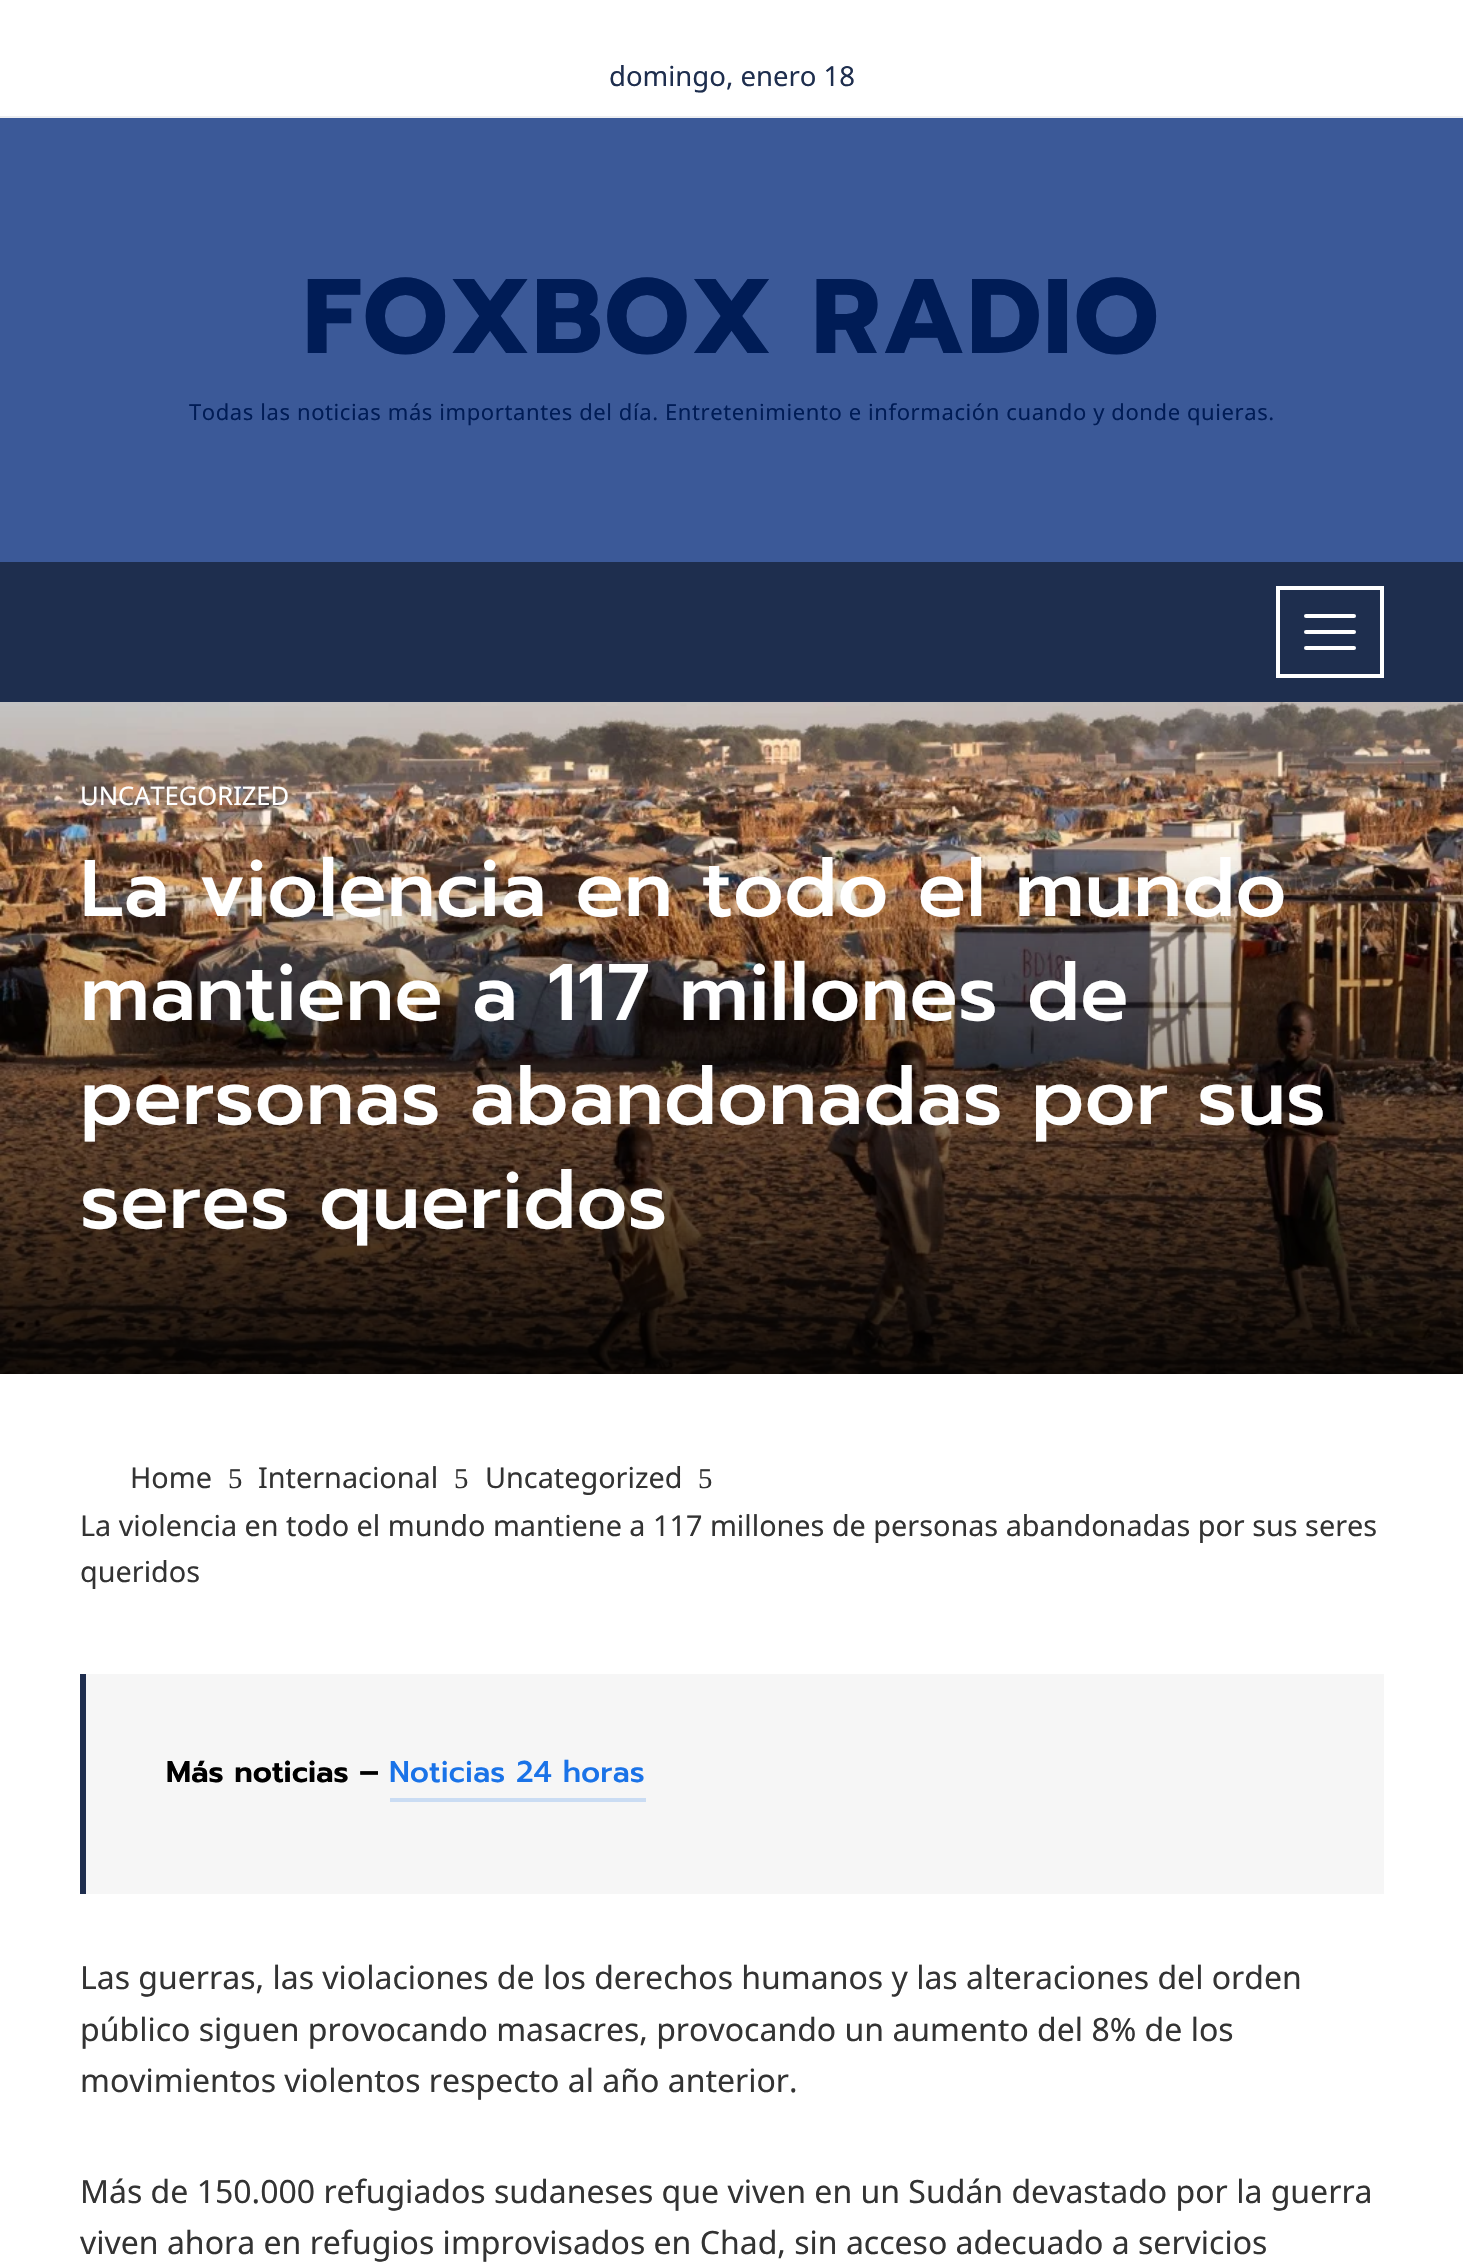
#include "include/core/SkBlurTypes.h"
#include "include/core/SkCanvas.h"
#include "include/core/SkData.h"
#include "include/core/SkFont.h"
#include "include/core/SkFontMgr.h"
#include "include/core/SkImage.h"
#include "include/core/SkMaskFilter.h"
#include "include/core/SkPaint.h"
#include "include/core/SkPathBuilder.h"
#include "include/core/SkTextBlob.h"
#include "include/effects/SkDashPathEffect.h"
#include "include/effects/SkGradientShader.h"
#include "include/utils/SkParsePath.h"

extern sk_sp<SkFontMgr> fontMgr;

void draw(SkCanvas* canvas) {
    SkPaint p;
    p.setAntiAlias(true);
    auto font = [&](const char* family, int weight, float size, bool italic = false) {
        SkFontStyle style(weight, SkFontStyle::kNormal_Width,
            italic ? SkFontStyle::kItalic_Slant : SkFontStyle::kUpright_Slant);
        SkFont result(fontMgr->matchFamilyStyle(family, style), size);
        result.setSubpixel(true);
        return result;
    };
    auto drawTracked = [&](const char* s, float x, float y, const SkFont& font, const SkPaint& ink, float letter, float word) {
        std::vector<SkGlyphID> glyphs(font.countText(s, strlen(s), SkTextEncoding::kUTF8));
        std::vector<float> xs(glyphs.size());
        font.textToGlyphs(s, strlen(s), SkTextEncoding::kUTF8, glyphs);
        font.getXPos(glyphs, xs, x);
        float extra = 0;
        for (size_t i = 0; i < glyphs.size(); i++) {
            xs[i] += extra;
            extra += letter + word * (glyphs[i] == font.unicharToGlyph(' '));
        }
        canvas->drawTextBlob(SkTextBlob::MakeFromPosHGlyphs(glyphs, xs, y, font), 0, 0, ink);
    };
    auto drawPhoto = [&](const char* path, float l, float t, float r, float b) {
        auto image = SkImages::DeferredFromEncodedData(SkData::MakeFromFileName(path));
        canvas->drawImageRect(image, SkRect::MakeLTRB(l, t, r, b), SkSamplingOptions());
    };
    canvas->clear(0xFFFFFFFF);
    p.setColor(0xFF3B5998);
    canvas->drawRect(SkRect::MakeLTRB(0, 118, 1463, 562), p);
    p.setColor(0xFFEDEEF1);
    canvas->drawRect(SkRect::MakeLTRB(0, 116, 1463, 118), p);
    auto font1 = font("Noto Sans", 400, 27.5f);
    p.setColor(0xFF1E2E4E);
    canvas->drawString("domingo, enero 18", 609, 86, font1, p);
    auto font2 = font("Prompt", 700, 106);
    p.setColor(0xFF001C56);
    drawTracked("FOXBOX RADIO", 303, 353, font2, p, 2, 0);
    auto font3 = font("Noto Sans", 400, 22);
    drawTracked("Todas las noticias más importantes del día. Entretenimiento e información cuando y donde quieras.", 189, 420, font3, p, 0.6f, 0);
    p.setColor(0xFF1E2E4E);
    canvas->drawRect(SkRect::MakeLTRB(0, 562, 1463, 702), p);
    p.setStyle(SkPaint::kStroke_Style);
    p.setStrokeWidth(4);
    p.setColor(0xFFFFFFFF);
    canvas->drawRect(SkRect::MakeLTRB(1278, 588, 1382, 676), p);
    p.setStyle(SkPaint::kFill_Style);
    canvas->drawRoundRect(SkRect::MakeLTRB(1304, 614, 1356, 618), 2, 2, p);
    canvas->drawRoundRect(SkRect::MakeLTRB(1304, 630, 1356, 634), 2, 2, p);
    canvas->drawRoundRect(SkRect::MakeLTRB(1304, 646, 1356, 650), 2, 2, p);
    drawPhoto("media/1.png", 0, 702, 1463, 1374);
    auto font4 = font("Noto Sans", 400, 25.5f);
    canvas->drawString("UNCATEGORIZED", 80, 805, font4, p);
    auto font5 = font("Prompt", 500, 80);
    {
        const struct { const char* s; float x, y; } items[] = {
            {"La violencia en todo el mundo", 80, 916},
            {"mantiene a 117 millones de", 80, 1020},
            {"personas abandonadas por sus", 80, 1124},
            {"seres queridos", 80, 1228},
        };
        for (auto [s, x, y] : items) {
            canvas->drawString(s, x, y, font5, p);
        }
    }
    auto font6 = font("Noto Sans", 400, 28.8f);
    p.setColor(0xFF333333);
    canvas->drawString("Home", 130, 1488, font6, p);
    auto font7 = font("Liberation Serif", 400, 28.8f);
    canvas->drawString("5", 228, 1488, font7, p);
    canvas->drawString("Internacional", 258, 1488, font6, p);
    canvas->drawString("5", 454, 1488, font7, p);
    canvas->drawString("Uncategorized", 485, 1488, font6, p);
    canvas->drawString("5", 698, 1488, font7, p);
    canvas->drawString("La violencia en todo el mundo mantiene a 117 millones de personas abandonadas por sus seres", 80, 1536, font6, p);
    canvas->drawString("queridos", 80, 1582, font6, p);
    p.setColor(0xFFF6F6F6);
    canvas->drawRect(SkRect::MakeLTRB(86, 1674, 1384, 1894), p);
    p.setColor(0xFF1E2E4E);
    canvas->drawRect(SkRect::MakeLTRB(80, 1674, 86, 1894), p);
    auto font8 = font("Prompt", 600, 30);
    p.setColor(0xFF000000);
    canvas->drawString("Más noticias –", 166, 1782, font8, p);
    auto font9 = font("Prompt", 500, 30);
    p.setColor(0xFF1A73E8);
    canvas->drawString("Noticias 24 horas", 389, 1782, font9, p);
    p.setColor(0xFFCADCF3);
    canvas->drawRect(SkRect::MakeLTRB(390, 1798, 646, 1802), p);
    auto font10 = font("Noto Sans", 400, 32);
    p.setColor(0xFF333333);
    {
        const struct { const char* s; float x, y; } items[] = {
            {"Las guerras, las violaciones de los derechos humanos y las alteraciones del orden", 80, 1989},
            {"público siguen provocando masacres, provocando un aumento del 8% de los", 80, 2041},
            {"movimientos violentos respecto al año anterior.", 80, 2092},
            {"Más de 150.000 refugiados sudaneses que viven en un Sudán devastado por la guerra", 80, 2203},
            {"viven ahora en refugios improvisados en Chad, sin acceso adecuado a servicios", 80, 2254},
        };
        for (auto [s, x, y] : items) {
            canvas->drawString(s, x, y, font10, p);
        }
    }
}
